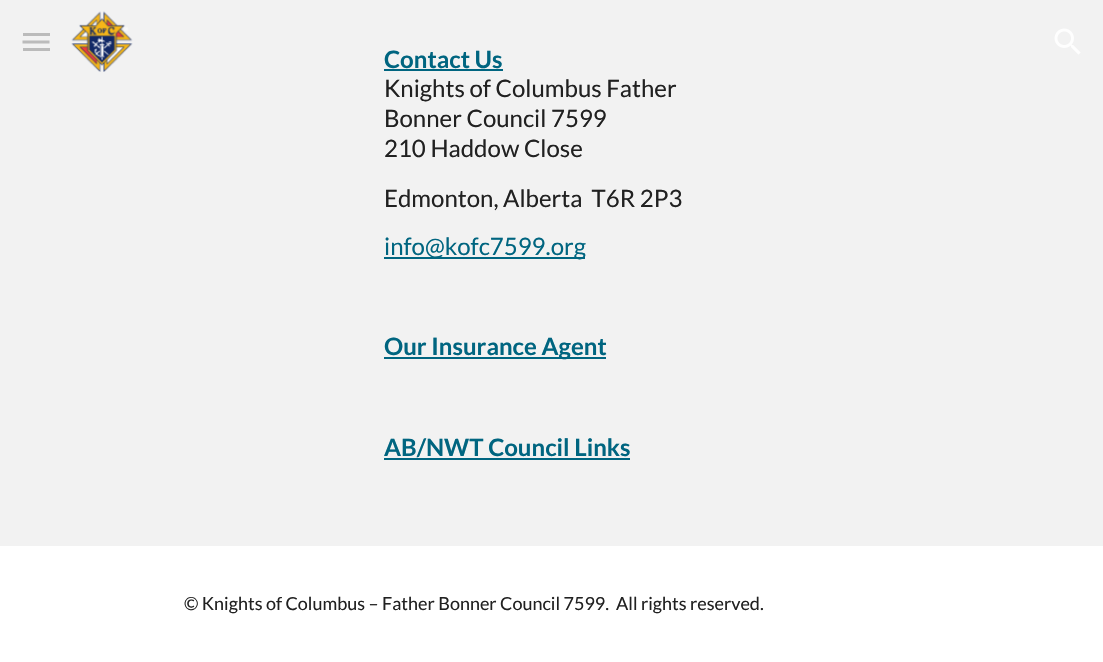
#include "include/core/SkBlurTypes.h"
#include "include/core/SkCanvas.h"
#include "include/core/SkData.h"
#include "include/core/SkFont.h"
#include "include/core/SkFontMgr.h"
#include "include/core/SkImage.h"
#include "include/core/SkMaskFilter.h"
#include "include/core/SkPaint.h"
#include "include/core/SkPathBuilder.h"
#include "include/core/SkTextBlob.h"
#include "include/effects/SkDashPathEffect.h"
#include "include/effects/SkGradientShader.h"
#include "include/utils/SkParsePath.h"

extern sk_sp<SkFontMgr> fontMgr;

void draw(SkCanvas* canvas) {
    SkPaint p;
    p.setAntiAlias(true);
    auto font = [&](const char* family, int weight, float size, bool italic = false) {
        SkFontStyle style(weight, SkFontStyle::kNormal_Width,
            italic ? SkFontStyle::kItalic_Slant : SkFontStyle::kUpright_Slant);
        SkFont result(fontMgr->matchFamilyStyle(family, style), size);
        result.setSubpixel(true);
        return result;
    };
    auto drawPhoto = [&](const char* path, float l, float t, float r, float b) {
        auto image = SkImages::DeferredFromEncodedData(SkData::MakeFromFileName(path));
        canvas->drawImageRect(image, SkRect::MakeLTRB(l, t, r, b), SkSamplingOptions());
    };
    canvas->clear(0xFFFFFFFF);
    p.setColor(0xFFF2F2F2);
    canvas->drawRect(SkRect::MakeLTRB(0, 0, 1103, 546), p);
    p.setColor(0xFFBBBBBB);
    canvas->drawRect(SkRect::MakeLTRB(23, 33, 50, 36), p);
    p.setStyle(SkPaint::kStroke_Style);
    p.setStrokeWidth(3);
    canvas->drawPath(SkPathBuilder().moveTo(22.5f, 42).lineTo(49.5f, 42).detach(), p);
    p.setStyle(SkPaint::kFill_Style);
    canvas->drawRect(SkRect::MakeLTRB(23, 48, 50, 51), p);
    drawPhoto("media/1.png", 71, 11, 133, 72);
    drawPhoto("media/2.png", 1054, 28, 1081, 55);
    auto font1 = font("Lato", 700, 24);
    p.setColor(0xFF006580);
    canvas->drawString("Contact Us", 384, 68, font1, p);
    canvas->drawRect(SkRect::MakeLTRB(384, 69, 503, 71), p);
    auto font2 = font("Lato", 400, 24);
    p.setColor(0xFF212121);
    {
        const struct { const char* s; float x, y; } items[] = {
            {"Knights of Columbus Father", 384, 97},
            {"Bonner Council 7599", 384, 127},
            {"210 Haddow Close", 384, 157},
            {"Edmonton, Alberta  T6R 2P3", 384, 207},
        };
        for (auto [s, x, y] : items) {
            canvas->drawString(s, x, y, font2, p);
        }
    }
    p.setColor(0xFF006580);
    canvas->drawRect(SkRect::MakeLTRB(384, 257, 585, 259), p);
    canvas->drawString("info@kofc7599.org", 384, 255, font2, p);
    canvas->drawRect(SkRect::MakeLTRB(384, 357, 606, 359), p);
    canvas->drawString("Our Insurance Agent", 384, 355, font1, p);
    canvas->drawString("AB/NWT Council Links", 384, 456, font1, p);
    canvas->drawRect(SkRect::MakeLTRB(384, 458, 630, 460), p);
    auto font3 = font("Lato", 400, 18);
    p.setColor(0xFF212121);
    canvas->drawString("© Knights of Columbus – Father Bonner Council 7599.  All rights reserved.", 184, 610, font3, p);
}
